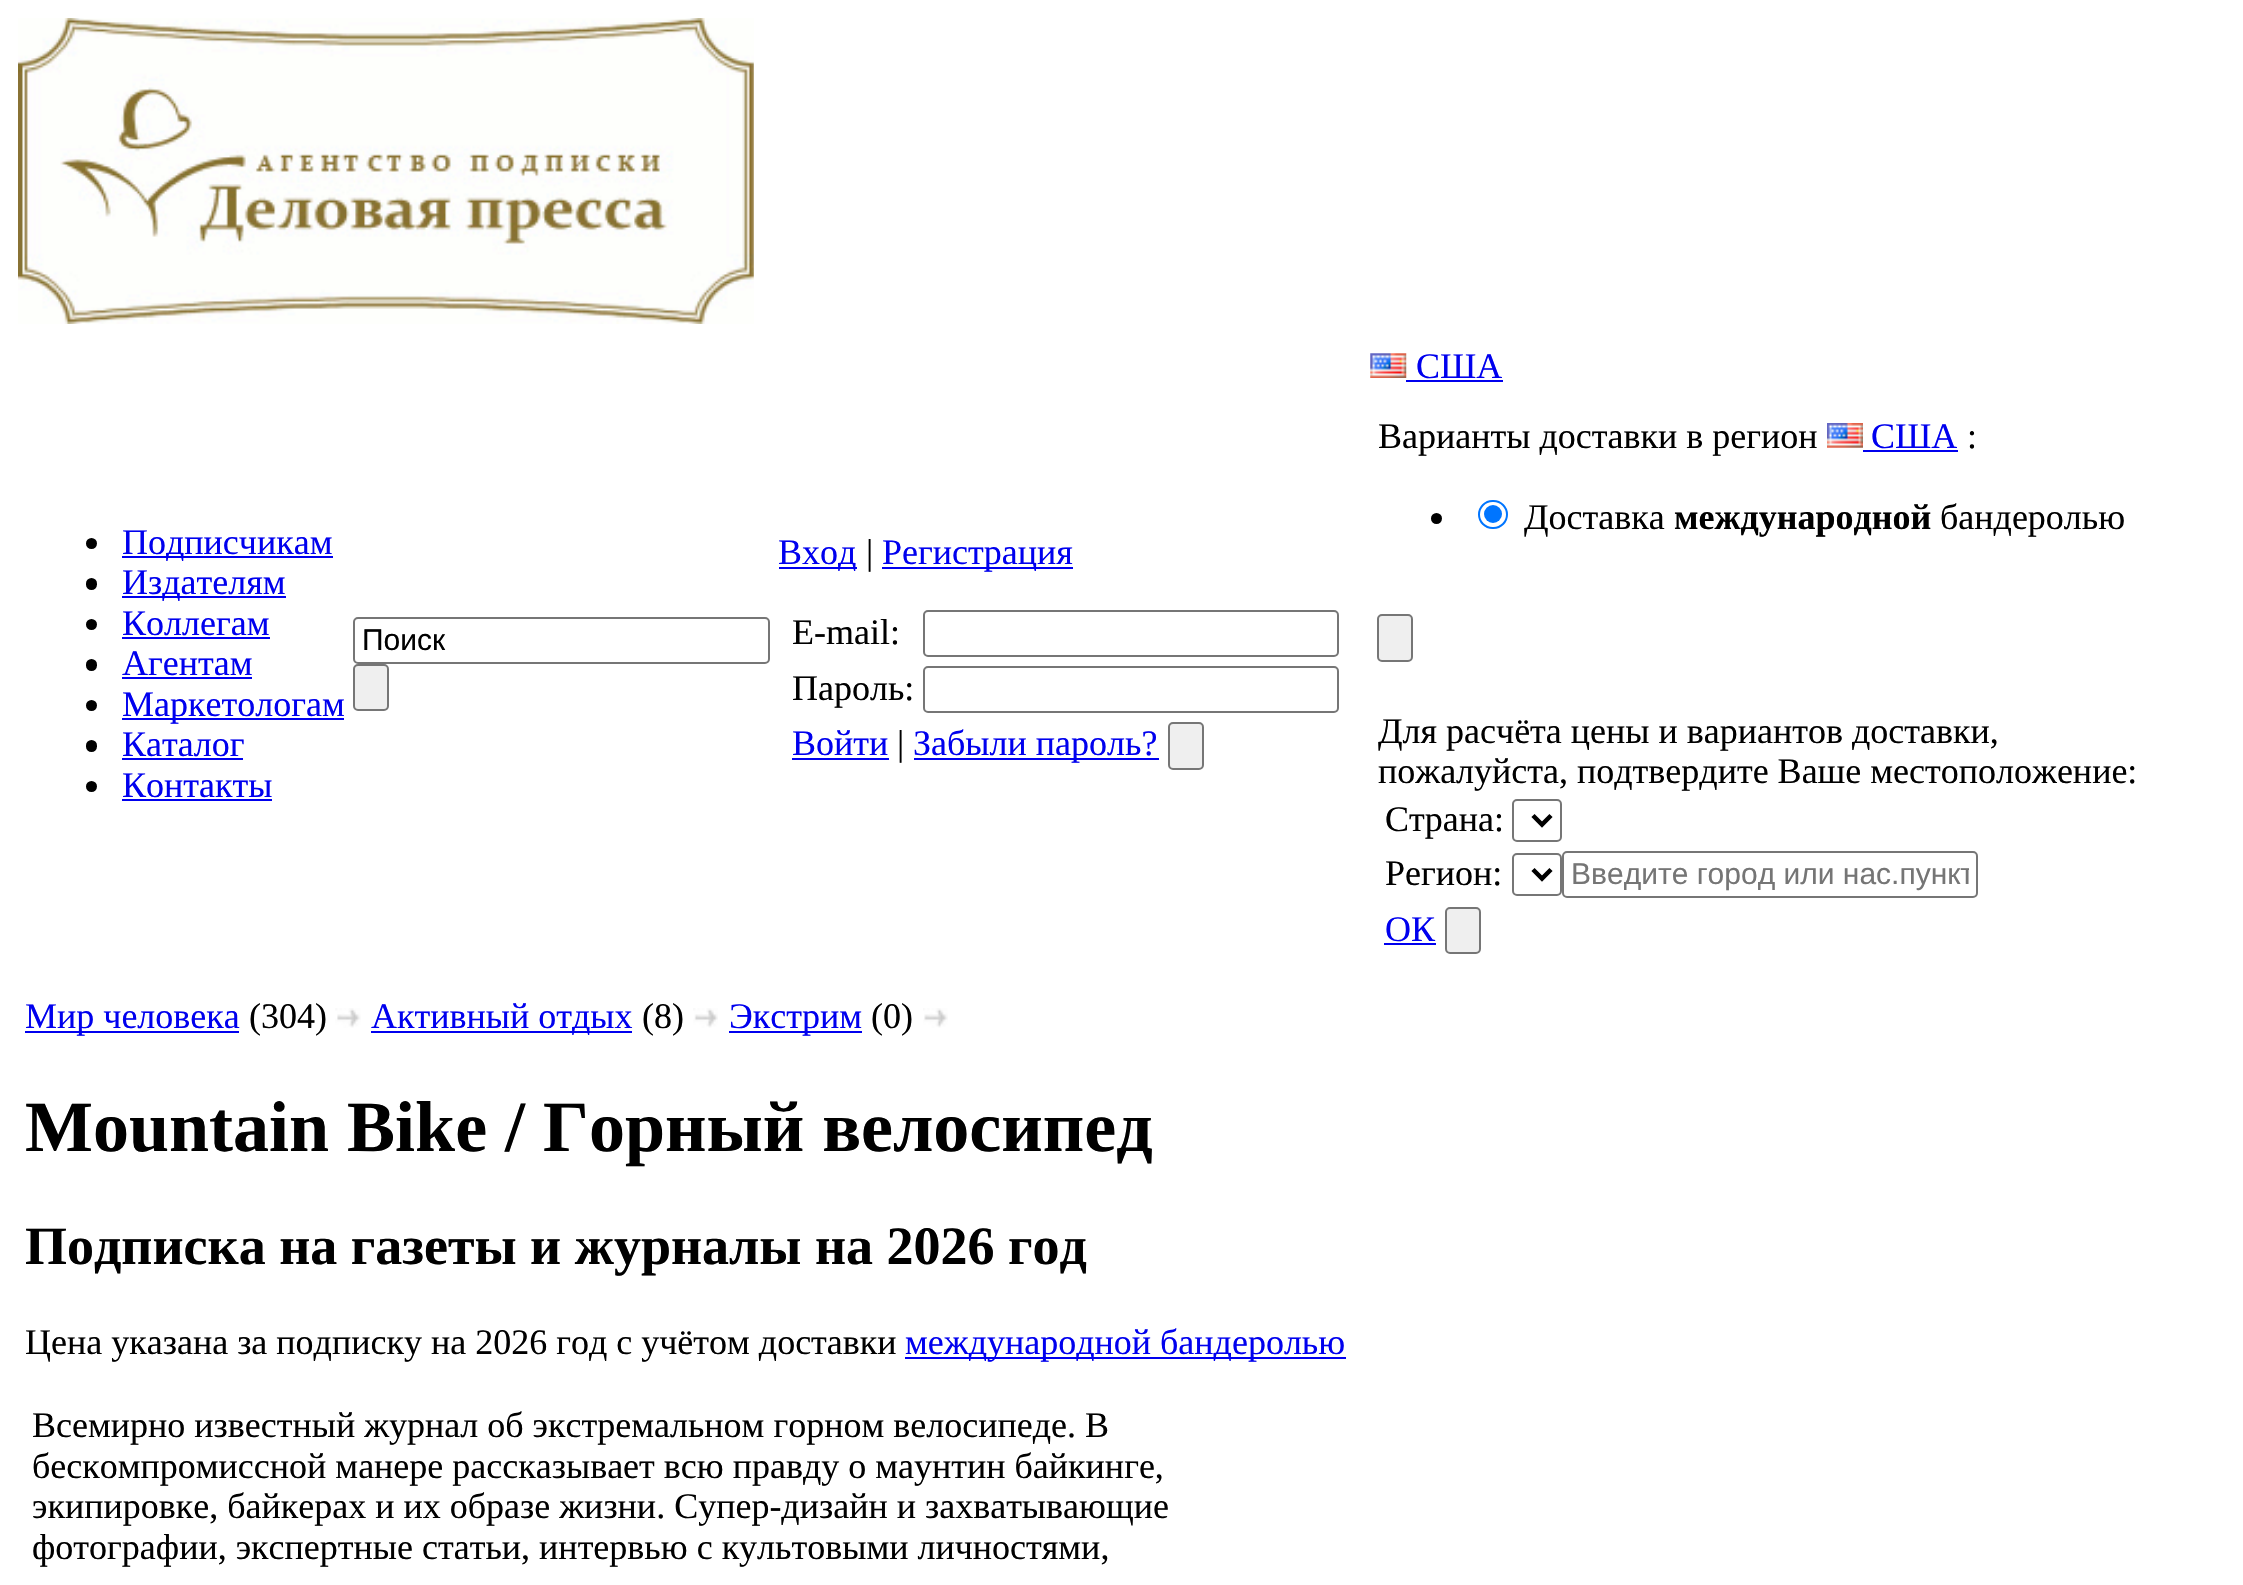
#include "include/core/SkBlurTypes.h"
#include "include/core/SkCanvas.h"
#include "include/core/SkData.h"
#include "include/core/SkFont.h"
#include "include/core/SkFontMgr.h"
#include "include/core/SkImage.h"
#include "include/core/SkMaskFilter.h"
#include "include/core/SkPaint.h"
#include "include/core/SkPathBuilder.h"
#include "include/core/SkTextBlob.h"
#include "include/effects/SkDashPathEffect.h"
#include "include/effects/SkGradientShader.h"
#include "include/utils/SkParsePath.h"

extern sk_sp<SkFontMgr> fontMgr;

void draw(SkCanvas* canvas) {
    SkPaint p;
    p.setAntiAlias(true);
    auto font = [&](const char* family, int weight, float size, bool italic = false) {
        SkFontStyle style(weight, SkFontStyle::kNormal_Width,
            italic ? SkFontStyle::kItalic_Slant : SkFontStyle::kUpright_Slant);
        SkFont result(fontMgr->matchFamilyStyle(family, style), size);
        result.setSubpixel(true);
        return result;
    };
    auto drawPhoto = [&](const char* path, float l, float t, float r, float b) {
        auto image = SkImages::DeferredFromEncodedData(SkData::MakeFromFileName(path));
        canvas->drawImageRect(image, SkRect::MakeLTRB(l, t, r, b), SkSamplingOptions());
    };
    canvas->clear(0xFFFFFFFF);
    drawPhoto("media/1.png", 18, 18, 754, 324);
    p.setColor(0xFF000000);
    canvas->drawCircle(91.5f, 543.5f, 5.5f, p);
    p.setColor(0xFF0000EE);
    canvas->drawRect(SkRect::MakeLTRB(122, 556, 333, 558), p);
    auto font1 = font("Liberation Serif", 400, 36);
    canvas->drawString("Подписчикам", 122, 554, font1, p);
    p.setColor(0xFF000000);
    canvas->drawRoundRect(SkRect::MakeLTRB(86, 578, 97, 590), 5.5f, 5.5f, p);
    p.setColor(0xFF0000EE);
    canvas->drawRect(SkRect::MakeLTRB(122, 596, 286, 598), p);
    canvas->drawString("Издателям", 122, 594, font1, p);
    p.setColor(0xFF000000);
    canvas->drawCircle(91.5f, 624.5f, 5.5f, p);
    p.setColor(0xFF0000EE);
    canvas->drawString("Коллегам", 122, 635, font1, p);
    canvas->drawRect(SkRect::MakeLTRB(122, 637, 270, 639), p);
    p.setColor(0xFF000000);
    canvas->drawRoundRect(SkRect::MakeLTRB(86, 659, 97, 671), 5.5f, 5.5f, p);
    p.setColor(0xFF0000EE);
    canvas->drawString("Агентам", 122, 675, font1, p);
    canvas->drawRect(SkRect::MakeLTRB(122, 677, 252, 679), p);
    p.setColor(0xFF000000);
    canvas->drawCircle(91.5f, 705.5f, 5.5f, p);
    p.setColor(0xFF0000EE);
    canvas->drawRect(SkRect::MakeLTRB(122, 718, 344, 720), p);
    canvas->drawString("Маркетологам", 122, 716, font1, p);
    p.setColor(0xFF000000);
    canvas->drawRoundRect(SkRect::MakeLTRB(86, 740, 97, 752), 5.5f, 5.5f, p);
    p.setColor(0xFF0000EE);
    canvas->drawString("Каталог", 122, 756, font1, p);
    canvas->drawRect(SkRect::MakeLTRB(122, 758, 243, 760), p);
    p.setColor(0xFF000000);
    canvas->drawCircle(91.5f, 786.5f, 5.5f, p);
    p.setColor(0xFF0000EE);
    canvas->drawString("Контакты", 122, 797, font1, p);
    canvas->drawRect(SkRect::MakeLTRB(122, 799, 272, 801), p);
    p.setStyle(SkPaint::kStroke_Style);
    p.setStrokeWidth(2);
    p.setColor(0xFF767676);
    canvas->drawRoundRect(SkRect::MakeLTRB(354, 618, 769, 663), 4, 4, p);
    auto font2 = font("Liberation Sans", 400, 30);
    p.setStyle(SkPaint::kFill_Style);
    p.setColor(0xFF000000);
    canvas->drawString("Поиск", 362, 650, font2, p);
    p.setColor(0xFFEFEFEF);
    canvas->drawRoundRect(SkRect::MakeLTRB(354, 665, 388, 710), 4, 4, p);
    p.setStyle(SkPaint::kStroke_Style);
    p.setColor(0xFF767676);
    canvas->drawRoundRect(SkRect::MakeLTRB(354, 665, 388, 710), 4, 4, p);
    p.setStyle(SkPaint::kFill_Style);
    p.setColor(0xFF0000EE);
    canvas->drawRect(SkRect::MakeLTRB(779, 567, 857, 569), p);
    canvas->drawString("Вход", 778, 564, font1, p);
    p.setColor(0xFF000000);
    canvas->drawString("|", 866, 564, font1, p);
    p.setColor(0xFF0000EE);
    canvas->drawRect(SkRect::MakeLTRB(882, 567, 1073, 569), p);
    canvas->drawString("Регистрация", 882, 564, font1, p);
    p.setColor(0xFF000000);
    canvas->drawString("E-mail:", 792, 644, font1, p);
    p.setStyle(SkPaint::kStroke_Style);
    p.setColor(0xFF767676);
    canvas->drawRoundRect(SkRect::MakeLTRB(924, 611, 1338, 656), 4, 4, p);
    p.setStyle(SkPaint::kFill_Style);
    p.setColor(0xFF000000);
    canvas->drawString("Пароль:", 792, 700, font1, p);
    p.setStyle(SkPaint::kStroke_Style);
    p.setColor(0xFF767676);
    canvas->drawRoundRect(SkRect::MakeLTRB(924, 667, 1338, 712), 4, 4, p);
    p.setStyle(SkPaint::kFill_Style);
    p.setColor(0xFF0000EE);
    canvas->drawString("Войти", 792, 755, font1, p);
    canvas->drawRect(SkRect::MakeLTRB(792, 758, 889, 760), p);
    p.setColor(0xFF000000);
    canvas->drawString("|", 897, 755, font1, p);
    p.setColor(0xFF0000EE);
    canvas->drawRect(SkRect::MakeLTRB(914, 758, 1159, 760), p);
    canvas->drawString("Забыли пароль?", 913, 755, font1, p);
    p.setColor(0xFFEFEFEF);
    canvas->drawRoundRect(SkRect::MakeLTRB(1169, 723, 1203, 769), 4, 4, p);
    p.setStyle(SkPaint::kStroke_Style);
    p.setColor(0xFF767676);
    canvas->drawRoundRect(SkRect::MakeLTRB(1169, 723, 1203, 769), 4, 4, p);
    drawPhoto("media/2.png", 1370, 353, 1407, 378);
    p.setStyle(SkPaint::kFill_Style);
    p.setColor(0xFF0000EE);
    canvas->drawString("США", 1416, 378, font1, p);
    canvas->drawRect(SkRect::MakeLTRB(1406, 380, 1503, 382), p);
    p.setColor(0xFF000000);
    canvas->drawString("Варианты доставки в регион", 1378, 448, font1, p);
    drawPhoto("media/3.png", 1827, 423, 1863, 448);
    p.setColor(0xFF0000EE);
    canvas->drawString("США", 1871, 448, font1, p);
    canvas->drawRect(SkRect::MakeLTRB(1863, 450, 1958, 452), p);
    p.setColor(0xFF000000);
    canvas->drawString(":", 1967, 448, font1, p);
    canvas->drawCircle(1436.5f, 518.5f, 5.5f, p);
    p.setStyle(SkPaint::kStroke_Style);
    p.setColor(0xFF0075FF);
    canvas->drawRoundRect(SkRect::MakeLTRB(1479, 501, 1507, 528), 13.5f, 13.5f, p);
    p.setStyle(SkPaint::kFill_Style);
    canvas->drawCircle(1493, 514, 9, p);
    p.setColor(0xFF000000);
    canvas->drawString("Доставка", 1524, 529, font1, p);
    auto font3 = font("Liberation Serif", 700, 36);
    canvas->drawString("международной", 1674, 529, font3, p);
    canvas->drawString("бандеролью", 1940, 529, font1, p);
    p.setColor(0xFFEFEFEF);
    canvas->drawRoundRect(SkRect::MakeLTRB(1378, 615, 1412, 661), 4, 4, p);
    p.setStyle(SkPaint::kStroke_Style);
    p.setColor(0xFF767676);
    canvas->drawRoundRect(SkRect::MakeLTRB(1378, 615, 1412, 661), 4, 4, p);
    p.setStyle(SkPaint::kFill_Style);
    p.setColor(0xFF000000);
    {
        const struct { const char* s; float x, y; } items[] = {
            {"Для расчёта цены и вариантов доставки,", 1378, 743},
            {"пожалуйста, подтвердите Ваше местоположение:", 1378, 783},
            {"Страна:", 1385, 831},
        };
        for (auto [s, x, y] : items) {
            canvas->drawString(s, x, y, font1, p);
        }
    }
    p.setStyle(SkPaint::kStroke_Style);
    p.setColor(0xFF767676);
    canvas->drawRoundRect(SkRect::MakeLTRB(1513, 800, 1561, 841), 4, 4, p);
    p.setStrokeWidth(4.5f);
    p.setColor(0xFF000000);
    canvas->drawPath(SkPathBuilder().moveTo(1533, 815.5f).lineTo(1542, 824.5f).lineTo(1551, 815.5f).detach(), p);
    p.setStyle(SkPaint::kFill_Style);
    canvas->drawString("Регион:", 1385, 885, font1, p);
    p.setStyle(SkPaint::kStroke_Style);
    p.setStrokeWidth(2);
    p.setColor(0xFF767676);
    canvas->drawRoundRect(SkRect::MakeLTRB(1513, 854, 1561, 895), 4, 4, p);
    p.setStrokeWidth(4.5f);
    p.setColor(0xFF000000);
    canvas->drawPath(SkPathBuilder().moveTo(1533, 869.5f).lineTo(1542, 878.5f).lineTo(1551, 869.5f).detach(), p);
    p.setStrokeWidth(2);
    p.setColor(0xFF767676);
    canvas->drawRoundRect(SkRect::MakeLTRB(1563, 852, 1977, 897), 4, 4, p);
    canvas->save();
    canvas->clipRect(SkRect::MakeLTRB(1571, 857, 1969, 891));
    p.setStyle(SkPaint::kFill_Style);
    p.setColor(0xFF757575);
    canvas->drawString("Введите город или нас.пункт", 1571, 884, font2, p);
    canvas->restore();
    p.setColor(0xFF0000EE);
    canvas->drawString("ОК", 1385, 941, font1, p);
    canvas->drawRect(SkRect::MakeLTRB(1384, 943, 1436, 945), p);
    p.setColor(0xFFEFEFEF);
    canvas->drawRoundRect(SkRect::MakeLTRB(1446, 908, 1480, 953), 4, 4, p);
    p.setStyle(SkPaint::kStroke_Style);
    p.setColor(0xFF767676);
    canvas->drawRoundRect(SkRect::MakeLTRB(1446, 908, 1480, 953), 4, 4, p);
    p.setStyle(SkPaint::kFill_Style);
    p.setColor(0xFF0000EE);
    canvas->drawRect(SkRect::MakeLTRB(25, 1031, 239, 1033), p);
    canvas->drawString("Мир человека", 25, 1028, font1, p);
    p.setColor(0xFF000000);
    canvas->drawString("(304)", 249, 1028, font1, p);
    drawPhoto("media/4.png", 335, 1008, 361, 1028);
    p.setColor(0xFF0000EE);
    canvas->drawRect(SkRect::MakeLTRB(371, 1031, 632, 1033), p);
    canvas->drawString("Активный отдых", 371, 1028, font1, p);
    p.setColor(0xFF000000);
    canvas->drawString("(8)", 642, 1028, font1, p);
    drawPhoto("media/5.png", 693, 1008, 718, 1028);
    p.setColor(0xFF0000EE);
    canvas->drawRect(SkRect::MakeLTRB(729, 1031, 862, 1033), p);
    canvas->drawString("Экстрим", 729, 1028, font1, p);
    p.setColor(0xFF000000);
    canvas->drawString("(0)", 871, 1028, font1, p);
    drawPhoto("media/6.png", 923, 1008, 948, 1028);
    auto font4 = font("Liberation Serif", 700, 72);
    canvas->drawString("Mountain Bike / Горный велосипед", 25, 1151, font4, p);
    auto font5 = font("Liberation Serif", 700, 54);
    canvas->drawString("Подписка на газеты и журналы на 2026 год", 25, 1264, font5, p);
    canvas->drawString("Цена указана за подписку на 2026 год с учётом доставки", 25, 1354, font1, p);
    p.setColor(0xFF0000EE);
    canvas->drawRect(SkRect::MakeLTRB(905, 1357, 1346, 1359), p);
    canvas->drawString("международной бандеролью", 905, 1354, font1, p);
    p.setColor(0xFF000000);
    {
        const struct { const char* s; float x, y; } items[] = {
            {"Всемирно известный журнал об экстремальном горном велосипеде. В", 32, 1437},
            {"бескомпромиссной манере расcказывает всю правду о маунтин байкинге,", 32, 1478},
            {"экипировке, байкерах и их образе жизни. Супер-дизайн и захватывающие", 32, 1518},
            {"фотографии, экспертные статьи, интервью с культовыми личностями,", 32, 1559},
        };
        for (auto [s, x, y] : items) {
            canvas->drawString(s, x, y, font1, p);
        }
    }
}
